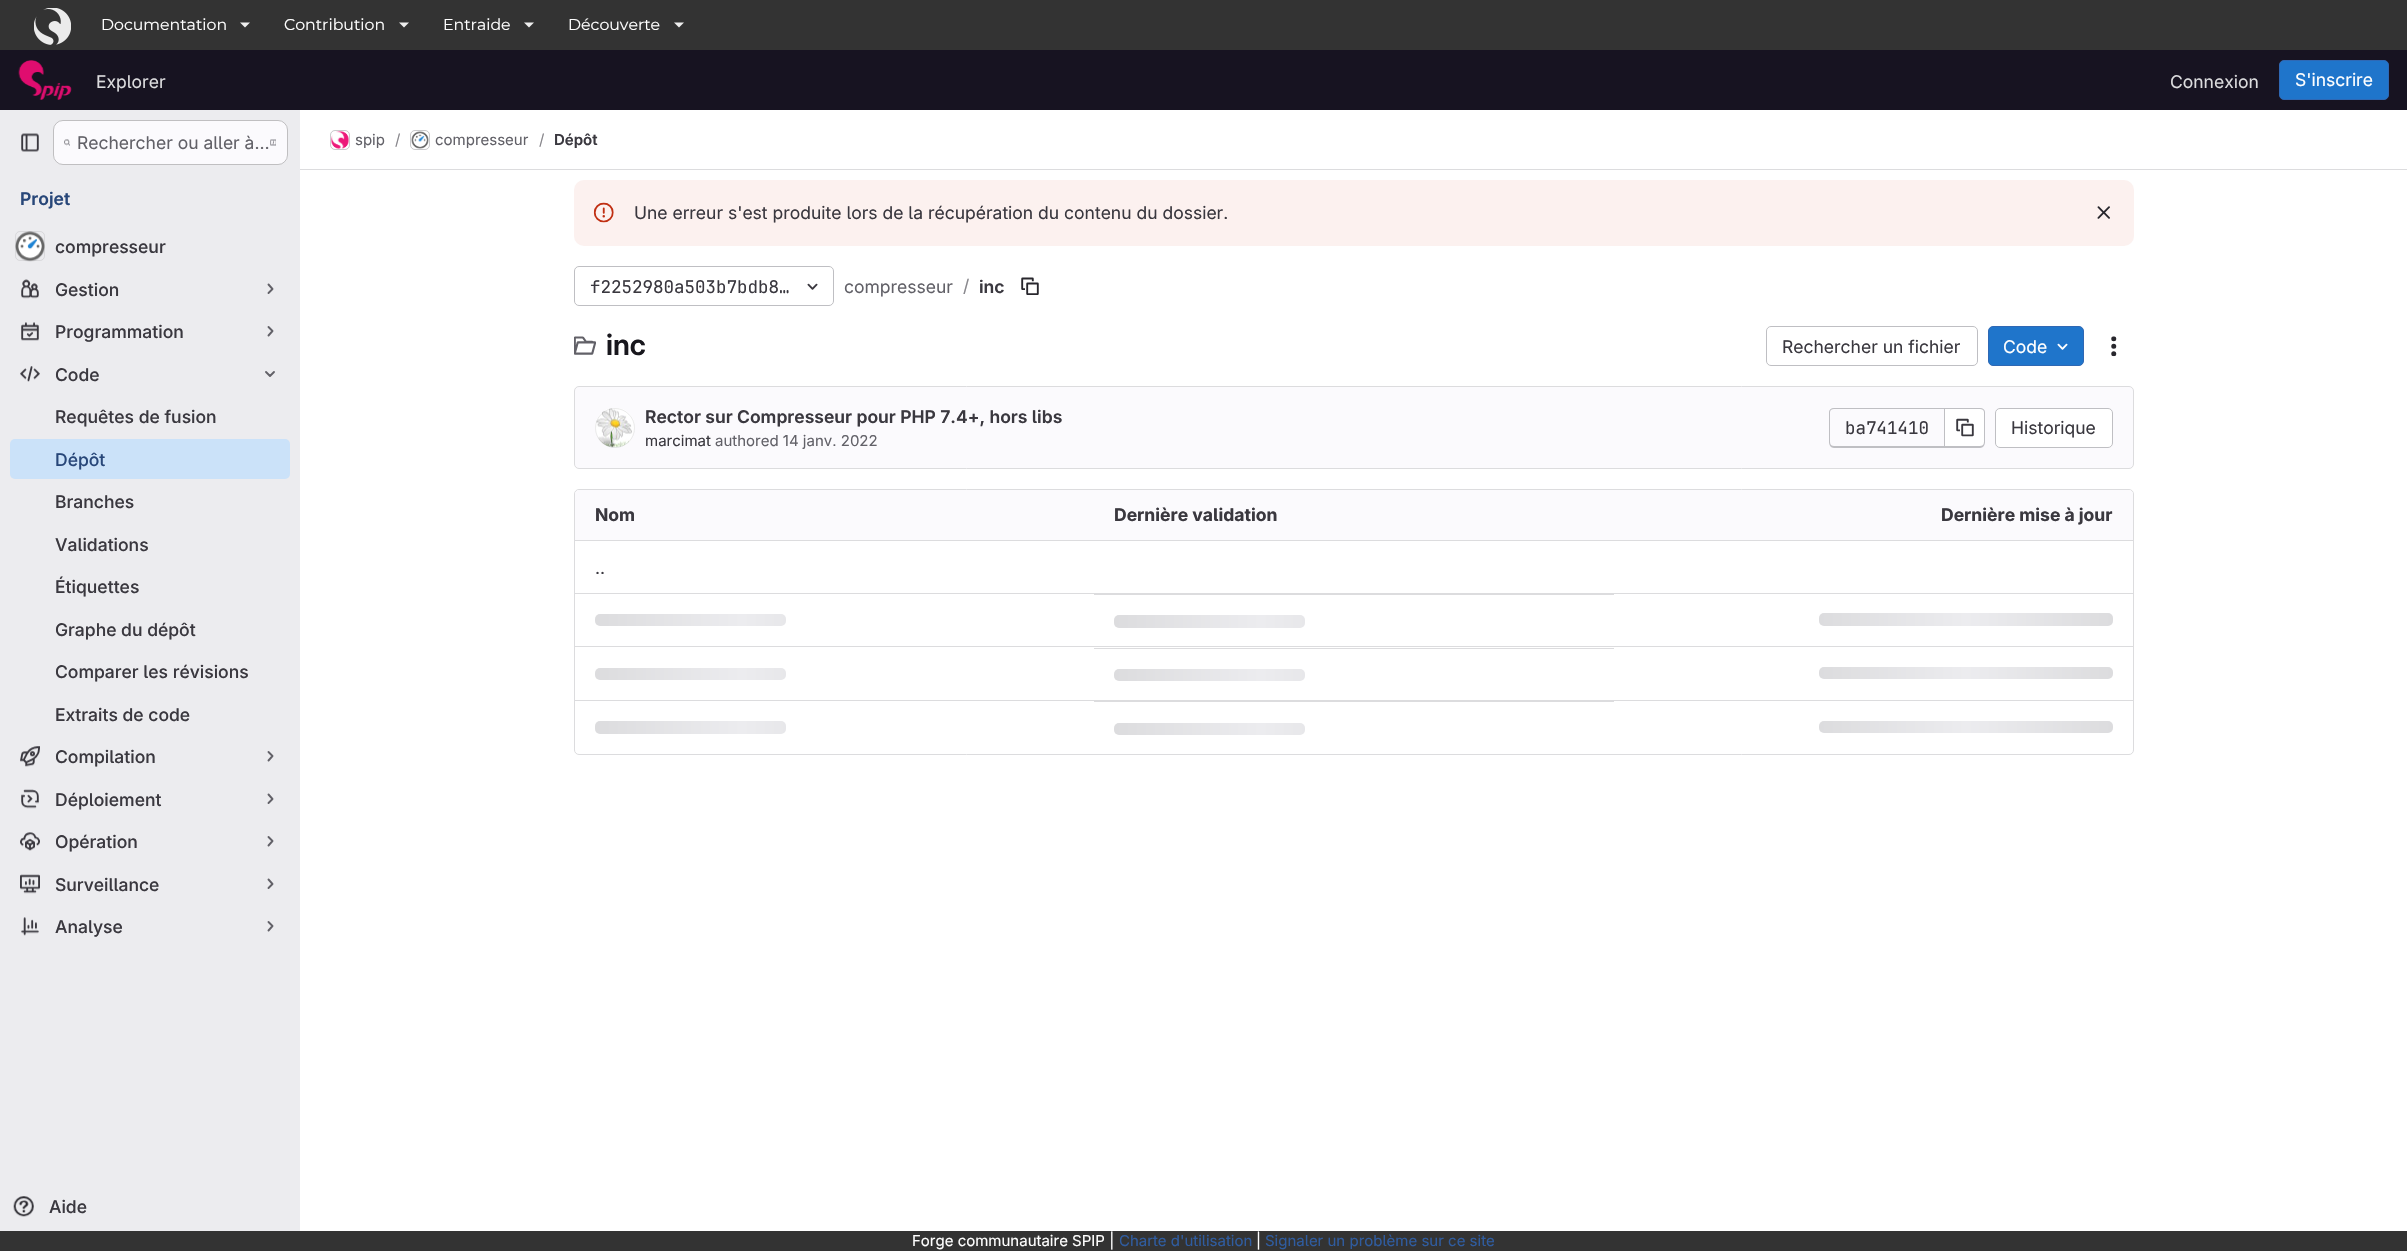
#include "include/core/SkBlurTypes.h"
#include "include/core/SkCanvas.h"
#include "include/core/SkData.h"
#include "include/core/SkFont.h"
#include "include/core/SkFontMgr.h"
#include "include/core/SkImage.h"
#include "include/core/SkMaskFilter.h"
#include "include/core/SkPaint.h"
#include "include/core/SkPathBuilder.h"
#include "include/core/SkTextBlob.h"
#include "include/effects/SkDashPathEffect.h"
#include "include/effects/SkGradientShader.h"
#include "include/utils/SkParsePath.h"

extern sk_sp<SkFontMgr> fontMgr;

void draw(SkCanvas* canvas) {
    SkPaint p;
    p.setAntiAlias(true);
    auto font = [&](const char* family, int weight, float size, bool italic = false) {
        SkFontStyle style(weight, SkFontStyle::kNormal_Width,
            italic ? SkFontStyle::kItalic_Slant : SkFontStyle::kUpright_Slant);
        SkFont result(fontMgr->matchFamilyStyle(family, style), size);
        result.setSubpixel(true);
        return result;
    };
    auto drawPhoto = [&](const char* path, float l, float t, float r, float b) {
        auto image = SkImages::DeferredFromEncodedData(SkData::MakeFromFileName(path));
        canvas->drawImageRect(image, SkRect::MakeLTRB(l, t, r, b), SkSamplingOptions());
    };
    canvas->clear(0xFFFFFFFF);
    p.setColor(0xFF333333);
    canvas->drawRect(SkRect::MakeLTRB(0, 0, 2407, 50), p);
    drawPhoto("media/1.png", 34, 8, 71, 45);
    auto font1 = font("Montserrat", 400, 15.75f);
    p.setColor(0xFFFFFFFF);
    canvas->drawString("Documentation", 101, 30, font1, p);
    p.setColor(0xFFEEEEEE);
    canvas->drawPath(SkPathBuilder().moveTo(240, 22.5f).lineTo(250, 22.5f).lineTo(245, 27.5f).close().detach(), p);
    p.setColor(0xFFFFFFFF);
    canvas->drawString("Contribution", 284, 30, font1, p);
    p.setColor(0xFFEEEEEE);
    canvas->drawPath(SkPathBuilder().moveTo(399, 22.5f).lineTo(409, 22.5f).lineTo(404, 27.5f).close().detach(), p);
    p.setColor(0xFFFFFFFF);
    canvas->drawString("Entraide", 443, 30, font1, p);
    p.setColor(0xFFEEEEEE);
    canvas->drawPath(SkPathBuilder().moveTo(524, 22.5f).lineTo(534, 22.5f).lineTo(529, 27.5f).close().detach(), p);
    p.setColor(0xFFFFFFFF);
    canvas->drawString("Découverte", 568, 30, font1, p);
    p.setColor(0xFFEEEEEE);
    canvas->drawPath(SkPathBuilder().moveTo(674, 22.5f).lineTo(684, 22.5f).lineTo(679, 27.5f).close().detach(), p);
    p.setColor(0xFF171321);
    canvas->drawRect(SkRect::MakeLTRB(0, 50, 2407, 110), p);
    drawPhoto("media/2.png", 18, 60, 72, 100);
    auto font2 = font("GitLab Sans", 400, 17.5f);
    p.setColor(0xFFDCDCDE);
    canvas->drawString("Explorer", 96, 88, font2, p);
    canvas->drawString("Connexion", 2170, 88, font2, p);
    p.setColor(0xFF1F75CB);
    canvas->drawRoundRect(SkRect::MakeLTRB(2279.5f, 60.5f, 2388.5f, 99.5f), 4.5f, 4.5f, p);
    p.setStyle(SkPaint::kStroke_Style);
    p.setStrokeWidth(1);
    p.setColor(0xFF2F68B4);
    canvas->drawRoundRect(SkRect::MakeLTRB(2279.5f, 60.5f, 2388.5f, 99.5f), 4.5f, 4.5f, p);
    p.setStyle(SkPaint::kFill_Style);
    p.setColor(0xFFFFFFFF);
    canvas->drawString("S'inscrire", 2295, 86, font2, p);
    p.setColor(0xFFECECEF);
    canvas->drawRect(SkRect::MakeLTRB(0, 110, 300, 1231), p);
    drawPhoto("media/3.png", 21, 133, 39, 152);
    p.setColor(0xFFFBFAFD);
    canvas->drawRoundRect(SkRect::MakeLTRB(53, 120, 288, 165), 10, 10, p);
    p.setStyle(SkPaint::kStroke_Style);
    p.setColor(0x3D050506);
    canvas->drawRoundRect(SkRect::MakeLTRB(53.5f, 120.5f, 287.5f, 164.5f), 9.5f, 9.5f, p);
    drawPhoto("media/4.png", 64, 139, 70, 146);
    p.setStyle(SkPaint::kFill_Style);
    p.setColor(0xFF626168);
    canvas->drawString("Rechercher ou aller à…", 77, 149, font2, p);
    drawPhoto("media/5.png", 270, 139, 276, 146);
    auto font3 = font("GitLab Sans", 600, 17.5f);
    p.setColor(0xFF284779);
    canvas->drawString("Projet", 20, 205, font3, p);
    drawPhoto("media/6.png", 15, 231, 45, 262);
    p.setStyle(SkPaint::kStroke_Style);
    p.setColor(0x14050506);
    canvas->drawRoundRect(SkRect::MakeLTRB(15.5f, 231.5f, 44.5f, 260.5f), 4.5f, 4.5f, p);
    auto font4 = font("GitLab Sans", 500, 17.5f);
    p.setStyle(SkPaint::kFill_Style);
    p.setColor(0xFF3A383F);
    canvas->drawString("compresseur", 55, 253, font4, p);
    drawPhoto("media/7.png", 21, 279, 39, 299);
    canvas->drawString("Gestion", 55, 296, font4, p);
    p.setStyle(SkPaint::kStroke_Style);
    p.setStrokeWidth(1.9f);
    p.setStrokeCap(SkPaint::kRound_Cap);
    p.setStrokeJoin(SkPaint::kRound_Join);
    p.setColor(0xFF626168);
    canvas->drawPath(SkPathBuilder().moveTo(268.5f, 284.5f).lineTo(272.5f, 289).lineTo(268.5f, 293).detach(), p);
    drawPhoto("media/8.png", 21, 322, 39, 341);
    p.setStyle(SkPaint::kFill_Style);
    p.setColor(0xFF3A383F);
    canvas->drawString("Programmation", 55, 338, font4, p);
    p.setStyle(SkPaint::kStroke_Style);
    p.setColor(0xFF626168);
    canvas->drawPath(SkPathBuilder().moveTo(268.5f, 327).lineTo(272.5f, 331).lineTo(268.5f, 335.5f).detach(), p);
    drawPhoto("media/9.png", 20, 366, 40, 382);
    p.setStyle(SkPaint::kFill_Style);
    p.setColor(0xFF3A383F);
    canvas->drawString("Code", 55, 381, font4, p);
    p.setStyle(SkPaint::kStroke_Style);
    p.setColor(0xFF626168);
    canvas->drawPath(SkPathBuilder().moveTo(274, 372).lineTo(270, 376).lineTo(266, 372).detach(), p);
    p.setStyle(SkPaint::kFill_Style);
    p.setColor(0xFF3A383F);
    canvas->drawString("Requêtes de fusion", 55, 423, font4, p);
    p.setColor(0xFFCBE2F9);
    canvas->drawRoundRect(SkRect::MakeLTRB(10, 439, 290, 479), 5, 5, p);
    p.setColor(0xFF284779);
    canvas->drawString("Dépôt", 55, 466, font4, p);
    p.setColor(0xFF3A383F);
    {
        const struct { const char* s; float x, y; } items[] = {
            {"Branches", 55, 508},
            {"Validations", 55, 551},
            {"Étiquettes", 55, 593},
            {"Graphe du dépôt", 55, 636},
            {"Comparer les révisions", 55, 678},
            {"Extraits de code", 55, 721},
        };
        for (auto [s, x, y] : items) {
            canvas->drawString(s, x, y, font4, p);
        }
    }
    drawPhoto("media/10.png", 20, 746, 40, 767);
    canvas->drawString("Compilation", 55, 763, font4, p);
    p.setStyle(SkPaint::kStroke_Style);
    p.setColor(0xFF626168);
    canvas->drawPath(SkPathBuilder().moveTo(268.5f, 752).lineTo(272.5f, 756).lineTo(268.5f, 760.5f).detach(), p);
    drawPhoto("media/11.png", 21, 789, 39, 809);
    p.setStyle(SkPaint::kFill_Style);
    p.setColor(0xFF3A383F);
    canvas->drawString("Déploiement", 55, 806, font4, p);
    p.setStyle(SkPaint::kStroke_Style);
    p.setColor(0xFF626168);
    canvas->drawPath(SkPathBuilder().moveTo(268.5f, 794.5f).lineTo(272.5f, 799).lineTo(268.5f, 803).detach(), p);
    drawPhoto("media/12.png", 20, 832, 40, 851);
    p.setStyle(SkPaint::kFill_Style);
    p.setColor(0xFF3A383F);
    canvas->drawString("Opération", 55, 848, font4, p);
    p.setStyle(SkPaint::kStroke_Style);
    p.setColor(0xFF626168);
    canvas->drawPath(SkPathBuilder().moveTo(268.5f, 837).lineTo(272.5f, 841).lineTo(268.5f, 845.5f).detach(), p);
    drawPhoto("media/13.png", 20, 874, 40, 894);
    p.setStyle(SkPaint::kFill_Style);
    p.setColor(0xFF3A383F);
    canvas->drawString("Surveillance", 55, 891, font4, p);
    p.setStyle(SkPaint::kStroke_Style);
    p.setColor(0xFF626168);
    canvas->drawPath(SkPathBuilder().moveTo(268.5f, 879.5f).lineTo(272.5f, 884).lineTo(268.5f, 888).detach(), p);
    drawPhoto("media/14.png", 21, 917, 39, 936);
    p.setStyle(SkPaint::kFill_Style);
    p.setColor(0xFF3A383F);
    canvas->drawString("Analyse", 55, 933, font4, p);
    p.setStyle(SkPaint::kStroke_Style);
    p.setColor(0xFF626168);
    canvas->drawPath(SkPathBuilder().moveTo(268.5f, 922).lineTo(272.5f, 926).lineTo(268.5f, 930.5f).detach(), p);
    drawPhoto("media/15.png", 13, 1196, 34, 1217);
    p.setStyle(SkPaint::kFill_Style);
    p.setColor(0xFF3A383F);
    canvas->drawString("Aide", 49, 1213, font4, p);
    p.setColor(0xFFDCDCDE);
    canvas->drawRect(SkRect::MakeLTRB(300, 169, 2407, 170), p);
    p.setStyle(SkPaint::kStroke_Style);
    p.setStrokeWidth(1);
    p.setStrokeCap(SkPaint::kButt_Cap);
    p.setStrokeJoin(SkPaint::kMiter_Join);
    canvas->drawRoundRect(SkRect::MakeLTRB(330.5f, 130.5f, 349.5f, 149.5f), 4.5f, 4.5f, p);
    drawPhoto("media/16.png", 331, 131, 349, 149);
    p.setColor(0x14050506);
    canvas->drawRoundRect(SkRect::MakeLTRB(330.5f, 130.5f, 349.5f, 149.5f), 4.5f, 4.5f, p);
    auto font5 = font("GitLab Sans", 400, 15);
    p.setStyle(SkPaint::kFill_Style);
    p.setColor(0xFF626168);
    canvas->drawString("spip", 355, 145, font5, p);
    p.setColor(0xFF89888D);
    canvas->drawString("/", 395, 145, font5, p);
    p.setStyle(SkPaint::kStroke_Style);
    p.setColor(0xFFDCDCDE);
    canvas->drawRoundRect(SkRect::MakeLTRB(410.5f, 130.5f, 429.5f, 149.5f), 4.5f, 4.5f, p);
    drawPhoto("media/17.png", 411, 131, 429, 149);
    p.setColor(0x14050506);
    canvas->drawRoundRect(SkRect::MakeLTRB(410.5f, 130.5f, 429.5f, 149.5f), 4.5f, 4.5f, p);
    p.setStyle(SkPaint::kFill_Style);
    p.setColor(0xFF626168);
    canvas->drawString("compresseur", 435, 145, font5, p);
    p.setColor(0xFF89888D);
    canvas->drawString("/", 539, 145, font5, p);
    auto font6 = font("GitLab Sans", 600, 15);
    p.setColor(0xFF3A383F);
    canvas->drawString("Dépôt", 554, 145, font6, p);
    p.setColor(0xFFFCF1EF);
    canvas->drawRoundRect(SkRect::MakeLTRB(574, 180, 2134, 246), 10, 10, p);
    drawPhoto("media/18.png", 593, 202, 614, 223);
    p.setColor(0xFF3A383F);
    canvas->drawString("Une erreur s'est produite lors de la récupération du contenu du dossier.", 634, 219, font2, p);
    drawPhoto("media/19.png", 2097, 206, 2110, 219);
    p.setStyle(SkPaint::kStroke_Style);
    p.setColor(0xFFBFBFC3);
    canvas->drawRoundRect(SkRect::MakeLTRB(574.5f, 266.5f, 833.5f, 305.5f), 4.5f, 4.5f, p);
    auto font7 = font("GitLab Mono", 400, 17.5f);
    p.setStyle(SkPaint::kFill_Style);
    p.setColor(0xFF3A383F);
    canvas->drawString("f2252980a503b7bdb8…", 590, 293, font7, p);
    drawPhoto("media/20.png", 807, 283, 818, 290);
    p.setColor(0xFF626168);
    canvas->drawString("compresseur", 844, 293, font2, p);
    p.setColor(0xFF89888D);
    canvas->drawString("/", 963, 292, font2, p);
    p.setColor(0xFF3A383F);
    canvas->drawString("inc", 979, 293, font3, p);
    drawPhoto("media/21.png", 1021, 277, 1039, 295);
    drawPhoto("media/22.png", 574, 336, 596, 355);
    auto font8 = font("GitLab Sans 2", 600, 29);
    p.setColor(0xFF18171D);
    canvas->drawString("inc", 606, 355, font8, p);
    p.setStyle(SkPaint::kStroke_Style);
    p.setColor(0xFFBFBFC3);
    canvas->drawRoundRect(SkRect::MakeLTRB(1766.5f, 326.5f, 1977.5f, 365.5f), 4.5f, 4.5f, p);
    p.setStyle(SkPaint::kFill_Style);
    p.setColor(0xFF3A383F);
    canvas->drawString("Rechercher un fichier", 1782, 353, font2, p);
    p.setColor(0xFF1F75CB);
    canvas->drawRoundRect(SkRect::MakeLTRB(1988.5f, 326.5f, 2083.5f, 365.5f), 4.5f, 4.5f, p);
    p.setStyle(SkPaint::kStroke_Style);
    p.setColor(0xFF2F68B4);
    canvas->drawRoundRect(SkRect::MakeLTRB(1988.5f, 326.5f, 2083.5f, 365.5f), 4.5f, 4.5f, p);
    p.setStyle(SkPaint::kFill_Style);
    p.setColor(0xFFFFFFFF);
    canvas->drawString("Code", 2003, 353, font2, p);
    drawPhoto("media/23.png", 2057, 343, 2068, 350);
    drawPhoto("media/24.png", 2111, 336, 2117, 357);
    p.setColor(0xFFFBFAFD);
    canvas->drawRoundRect(SkRect::MakeLTRB(574.5f, 386.5f, 2133.5f, 468.5f), 4.5f, 4.5f, p);
    p.setStyle(SkPaint::kStroke_Style);
    p.setColor(0xFFDCDCDE);
    canvas->drawRoundRect(SkRect::MakeLTRB(574.5f, 386.5f, 2133.5f, 468.5f), 4.5f, 4.5f, p);
    drawPhoto("media/25.png", 595, 408, 635, 448);
    p.setColor(0x14050506);
    canvas->drawCircle(615, 428, 19.5f, p);
    p.setStyle(SkPaint::kFill_Style);
    p.setColor(0xFF3A383F);
    canvas->drawString("Rector sur Compresseur pour PHP 7.4+, hors libs", 645, 423, font3, p);
    canvas->drawString("marcimat", 645, 446, font5, p);
    p.setColor(0xFF626168);
    canvas->drawString("authored 14 janv. 2022", 715, 446, font5, p);
    p.setColor(0xFFBFBFC3);
    canvas->drawPath(SkPathBuilder(SkPathFillType::kEvenOdd).moveTo(1834, 408).lineTo(1944, 408).lineTo(1944, 448).lineTo(1834, 448).cubicTo(1831, 448, 1829, 445, 1829, 442).lineTo(1829, 412).cubicTo(1829, 410, 1831, 408, 1834, 408).close().moveTo(1834, 409).lineTo(1944, 409).lineTo(1944, 446).lineTo(1834, 446).cubicTo(1832, 446, 1830, 445, 1830, 442).lineTo(1830, 412).cubicTo(1830, 410, 1832, 409, 1834, 409).close().detach(), p);
    p.setColor(0xFF3A383F);
    canvas->drawString("ba741410", 1845, 434, font7, p);
    p.setColor(0xFFFFFFFF);
    canvas->drawPath(SkPathBuilder().moveTo(1945, 409).lineTo(1980, 409).cubicTo(1982, 409, 1984, 411, 1984, 413).lineTo(1984, 442).cubicTo(1984, 444, 1982, 446, 1980, 446).lineTo(1945, 446).close().detach(), p);
    p.setColor(0xFFBFBFC3);
    canvas->drawPath(SkPathBuilder(SkPathFillType::kEvenOdd).moveTo(1945, 408).lineTo(1980, 408).cubicTo(1983, 408, 1985, 410, 1985, 412).lineTo(1985, 442).cubicTo(1985, 445, 1983, 448, 1980, 448).lineTo(1945, 448).close().moveTo(1945, 409).lineTo(1980, 409).cubicTo(1982, 409, 1984, 410, 1984, 412).lineTo(1984, 442).cubicTo(1984, 445, 1982, 446, 1980, 446).lineTo(1945, 446).close().detach(), p);
    canvas->drawRect(SkRect::MakeLTRB(1944, 408, 1945, 448), p);
    drawPhoto("media/26.png", 1956, 418, 1974, 437);
    p.setColor(0xFFFFFFFF);
    canvas->drawRoundRect(SkRect::MakeLTRB(1995.5f, 408.5f, 2112.5f, 447.5f), 4.5f, 4.5f, p);
    p.setStyle(SkPaint::kStroke_Style);
    p.setColor(0xFFBFBFC3);
    canvas->drawRoundRect(SkRect::MakeLTRB(1995.5f, 408.5f, 2112.5f, 447.5f), 4.5f, 4.5f, p);
    p.setStyle(SkPaint::kFill_Style);
    p.setColor(0xFF3A383F);
    canvas->drawString("Historique", 2011, 434, font2, p);
    p.setStyle(SkPaint::kStroke_Style);
    p.setColor(0xFFDCDCDE);
    canvas->drawRoundRect(SkRect::MakeLTRB(574.5f, 489.5f, 2133.5f, 754.5f), 4.5f, 4.5f, p);
    p.setStyle(SkPaint::kFill_Style);
    p.setColor(0xFFFBFAFD);
    canvas->drawPath(SkPathBuilder().moveTo(579, 490).lineTo(1094, 490).lineTo(1094, 541).lineTo(575, 541).lineTo(575, 494).cubicTo(575, 492, 577, 490, 579, 490).close().detach(), p);
    auto font9 = font("GitLab Sans", 700, 17.5f);
    p.setColor(0xFF3A383F);
    canvas->drawString("Nom", 595, 521, font9, p);
    p.setColor(0xFFFBFAFD);
    canvas->drawRect(SkRect::MakeLTRB(1094, 490, 1614, 540), p);
    p.setColor(0xFF3A383F);
    canvas->drawString("Dernière validation", 1114, 521, font9, p);
    p.setColor(0xFFFBFAFD);
    canvas->drawPath(SkPathBuilder().moveTo(1614, 490).lineTo(2129, 490).cubicTo(2131, 490, 2133, 492, 2133, 494).lineTo(2133, 541).lineTo(1614, 541).close().detach(), p);
    p.setColor(0xFF3A383F);
    canvas->drawString("Dernière mise à jour", 1941, 521, font9, p);
    p.setColor(0xFFDCDCDE);
    canvas->drawRect(SkRect::MakeLTRB(575, 593, 2133, 594), p);
    canvas->drawRect(SkRect::MakeLTRB(575, 540, 2133, 541), p);
    p.setColor(0xFF3A383F);
    canvas->drawString("..", 595, 574, font2, p);
    p.setColor(0xFFDCDCDE);
    canvas->drawRect(SkRect::MakeLTRB(575, 646, 2133, 647), p);
    {
        const SkColor colors[] = {0xFFDCDCDE, 0xFFECECEF, 0xFFDCDCDE};
        const float stops[] = {0, 0.5f, 1};
        const SkPoint ends[] = {{595, 614}, {889, 614}};
        p.setShader(SkGradientShader::MakeLinear(ends, colors, stops, 3, SkTileMode::kClamp));
        p.setAlpha(255);
    }
    canvas->drawRoundRect(SkRect::MakeLTRB(595, 614, 786, 626), 5, 5, p);
    p.setShader(nullptr);
    p.setColor(0xFFDCDCDE);
    canvas->drawRect(SkRect::MakeLTRB(1094, 594, 1614, 595), p);
    {
        const SkColor colors[] = {0xFFDCDCDE, 0xFFECECEF, 0xFFDCDCDE};
        const float stops[] = {0, 0.5f, 1};
        const SkPoint ends[] = {{1114, 615}, {1408, 615}};
        p.setShader(SkGradientShader::MakeLinear(ends, colors, stops, 3, SkTileMode::kClamp));
        p.setAlpha(255);
    }
    canvas->drawRoundRect(SkRect::MakeLTRB(1114, 615, 1305, 628), 5, 5, p);
    {
        const SkColor colors[] = {0xFFDCDCDE, 0xFFECECEF, 0xFFDCDCDE};
        const float stops[] = {0, 0.5f, 1};
        const SkPoint ends[] = {{1819, 613}, {2113, 613}};
        p.setShader(SkGradientShader::MakeLinear(ends, colors, stops, 3, SkTileMode::kClamp));
        p.setAlpha(255);
    }
    canvas->drawRoundRect(SkRect::MakeLTRB(1819, 613, 2113, 626), 5, 5, p);
    p.setShader(nullptr);
    p.setColor(0xFFDCDCDE);
    canvas->drawRect(SkRect::MakeLTRB(575, 700, 2133, 701), p);
    {
        const SkColor colors[] = {0xFFDCDCDE, 0xFFECECEF, 0xFFDCDCDE};
        const float stops[] = {0, 0.5f, 1};
        const SkPoint ends[] = {{595, 668}, {889, 668}};
        p.setShader(SkGradientShader::MakeLinear(ends, colors, stops, 3, SkTileMode::kClamp));
        p.setAlpha(255);
    }
    canvas->drawRoundRect(SkRect::MakeLTRB(595, 668, 786, 680), 5, 5, p);
    p.setShader(nullptr);
    p.setColor(0xFFDCDCDE);
    canvas->drawRect(SkRect::MakeLTRB(1094, 648, 1614, 649), p);
    {
        const SkColor colors[] = {0xFFDCDCDE, 0xFFECECEF, 0xFFDCDCDE};
        const float stops[] = {0, 0.5f, 1};
        const SkPoint ends[] = {{1114, 669}, {1408, 669}};
        p.setShader(SkGradientShader::MakeLinear(ends, colors, stops, 3, SkTileMode::kClamp));
        p.setAlpha(255);
    }
    canvas->drawRoundRect(SkRect::MakeLTRB(1114, 669, 1305, 681), 5, 5, p);
    {
        const SkColor colors[] = {0xFFDCDCDE, 0xFFECECEF, 0xFFDCDCDE};
        const float stops[] = {0, 0.5f, 1};
        const SkPoint ends[] = {{1819, 667}, {2113, 667}};
        p.setShader(SkGradientShader::MakeLinear(ends, colors, stops, 3, SkTileMode::kClamp));
        p.setAlpha(255);
    }
    canvas->drawRoundRect(SkRect::MakeLTRB(1819, 667, 2113, 679), 5, 5, p);
    {
        const SkColor colors[] = {0xFFDCDCDE, 0xFFECECEF, 0xFFDCDCDE};
        const float stops[] = {0, 0.5f, 1};
        const SkPoint ends[] = {{595, 721}, {889, 721}};
        p.setShader(SkGradientShader::MakeLinear(ends, colors, stops, 3, SkTileMode::kClamp));
        p.setAlpha(255);
    }
    canvas->drawRoundRect(SkRect::MakeLTRB(595, 721, 786, 734), 5, 5, p);
    p.setShader(nullptr);
    p.setColor(0xFFDCDCDE);
    canvas->drawRect(SkRect::MakeLTRB(1094, 701, 1614, 702), p);
    {
        const SkColor colors[] = {0xFFDCDCDE, 0xFFECECEF, 0xFFDCDCDE};
        const float stops[] = {0, 0.5f, 1};
        const SkPoint ends[] = {{1114, 723}, {1408, 723}};
        p.setShader(SkGradientShader::MakeLinear(ends, colors, stops, 3, SkTileMode::kClamp));
        p.setAlpha(255);
    }
    canvas->drawRoundRect(SkRect::MakeLTRB(1114, 723, 1305, 735), 5, 5, p);
    {
        const SkColor colors[] = {0xFFDCDCDE, 0xFFECECEF, 0xFFDCDCDE};
        const float stops[] = {0, 0.5f, 1};
        const SkPoint ends[] = {{1819, 721}, {2113, 721}};
        p.setShader(SkGradientShader::MakeLinear(ends, colors, stops, 3, SkTileMode::kClamp));
        p.setAlpha(255);
    }
    canvas->drawRoundRect(SkRect::MakeLTRB(1819, 721, 2113, 733), 5, 5, p);
    p.setShader(nullptr);
    p.setColor(0xFF333333);
    canvas->drawRect(SkRect::MakeLTRB(0, 1231, 2407, 1251), p);
    p.setColor(0xFFFFFFFF);
    canvas->drawString("Forge communautaire SPIP |", 912, 1246, font5, p);
    p.setColor(0xFF2F5CA0);
    canvas->drawString("Charte d'utilisation", 1119, 1246, font5, p);
    p.setColor(0xFFFFFFFF);
    canvas->drawString("|", 1256, 1246, font5, p);
    p.setColor(0xFF2F5CA0);
    canvas->drawString("Signaler un problème sur ce site", 1265, 1246, font5, p);
}
